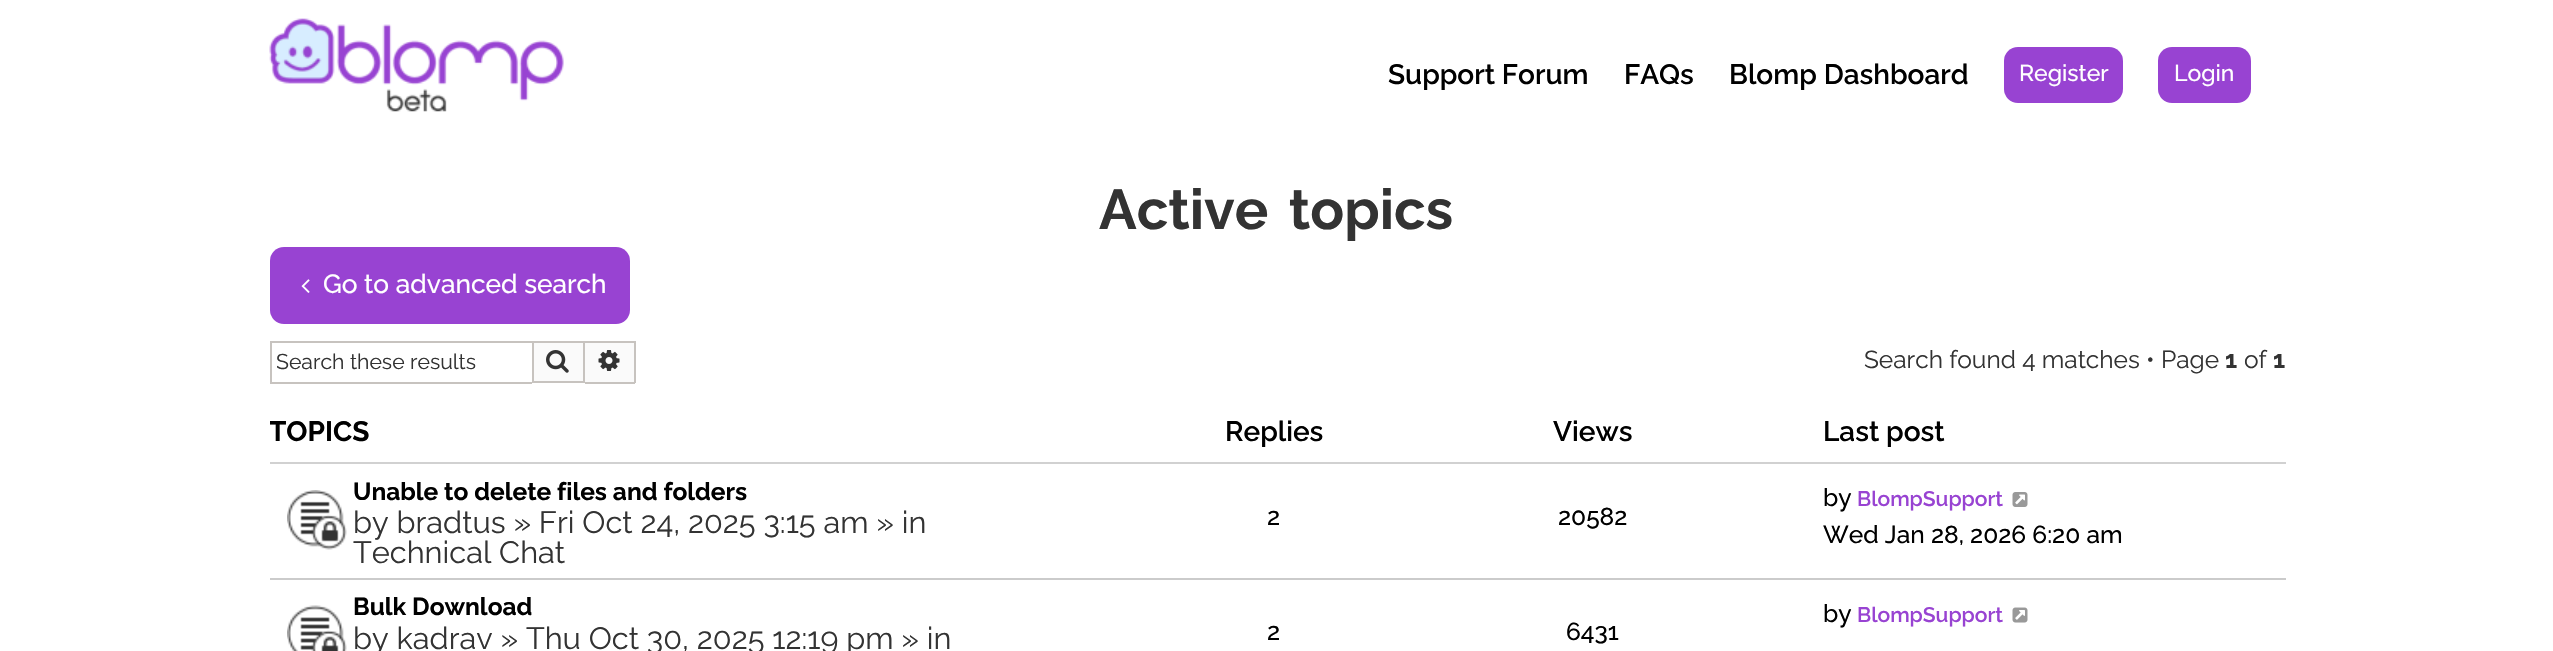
#include "include/core/SkBlurTypes.h"
#include "include/core/SkCanvas.h"
#include "include/core/SkData.h"
#include "include/core/SkFont.h"
#include "include/core/SkFontMgr.h"
#include "include/core/SkImage.h"
#include "include/core/SkMaskFilter.h"
#include "include/core/SkPaint.h"
#include "include/core/SkPathBuilder.h"
#include "include/core/SkTextBlob.h"
#include "include/effects/SkDashPathEffect.h"
#include "include/effects/SkGradientShader.h"
#include "include/utils/SkParsePath.h"

extern sk_sp<SkFontMgr> fontMgr;

void draw(SkCanvas* canvas) {
    SkPaint p;
    p.setAntiAlias(true);
    auto font = [&](const char* family, int weight, float size, bool italic = false) {
        SkFontStyle style(weight, SkFontStyle::kNormal_Width,
            italic ? SkFontStyle::kItalic_Slant : SkFontStyle::kUpright_Slant);
        SkFont result(fontMgr->matchFamilyStyle(family, style), size);
        result.setSubpixel(true);
        return result;
    };
    auto drawTracked = [&](const char* s, float x, float y, const SkFont& font, const SkPaint& ink, float letter, float word) {
        std::vector<SkGlyphID> glyphs(font.countText(s, strlen(s), SkTextEncoding::kUTF8));
        std::vector<float> xs(glyphs.size());
        font.textToGlyphs(s, strlen(s), SkTextEncoding::kUTF8, glyphs);
        font.getXPos(glyphs, xs, x);
        float extra = 0;
        for (size_t i = 0; i < glyphs.size(); i++) {
            xs[i] += extra;
            extra += letter + word * (glyphs[i] == font.unicharToGlyph(' '));
        }
        canvas->drawTextBlob(SkTextBlob::MakeFromPosHGlyphs(glyphs, xs, y, font), 0, 0, ink);
    };
    auto drawPhoto = [&](const char* path, float l, float t, float r, float b) {
        auto image = SkImages::DeferredFromEncodedData(SkData::MakeFromFileName(path));
        canvas->drawImageRect(image, SkRect::MakeLTRB(l, t, r, b), SkSamplingOptions());
    };
    canvas->clear(0xFFFFFFFF);
    drawPhoto("media/1.png", 269, 18, 564, 112);
    auto font1 = font("Raleway", 600, 28);
    p.setColor(0xFF000000);
    {
        const struct { const char* s; float x, y; } items[] = {
            {"Support Forum", 1388, 84},
            {"FAQs", 1624, 84},
            {"Blomp Dashboard", 1729, 84},
        };
        for (auto [s, x, y] : items) {
            canvas->drawString(s, x, y, font1, p);
        }
    }
    p.setColor(0xFF9843D2);
    canvas->drawRoundRect(SkRect::MakeLTRB(2004, 47, 2123, 103), 14, 14, p);
    auto font2 = font("Raleway", 500, 23);
    p.setColor(0xFFFFFFFF);
    canvas->drawString("Register", 2019, 81, font2, p);
    p.setColor(0xFF9843D2);
    canvas->drawRoundRect(SkRect::MakeLTRB(2158, 47, 2251, 103), 14, 14, p);
    p.setColor(0xFFFFFFFF);
    canvas->drawString("Login", 2174, 81, font2, p);
    auto font3 = font("Raleway", 700, 56);
    p.setColor(0xFF333333);
    drawTracked("Active topics", 1099, 229, font3, p, 0, 7);
    p.setColor(0xFF9843D2);
    canvas->drawRoundRect(SkRect::MakeLTRB(270, 247, 630, 324), 14, 14, p);
    drawPhoto("media/2.png", 301, 279, 310, 293);
    auto font4 = font("Raleway", 500, 26.25f);
    p.setColor(0xFFFFFFFF);
    canvas->drawString("Go to advanced search", 323, 293, font4, p);
    {
        const struct { float l, t, r, b; SkColor color; } items[] = {
            {270, 341, 532, 343, 0xFFC7C3BF},
            {270, 382, 532, 384, 0xFFC7C3BF},
            {270, 341, 272, 383, 0xFFC7C3BF},
        };
        for (auto [l, t, r, b, color] : items) {
            p.setColor(color);
            canvas->drawRect(SkRect::MakeLTRB(l, t, r, b), p);
        }
    }
    canvas->save();
    canvas->clipRect(SkRect::MakeLTRB(277, 350, 520, 375));
    auto font5 = font("Raleway", 400, 21.25f);
    p.setColor(0xFF333333);
    canvas->drawString("Search these results", 276, 369, font5, p);
    canvas->restore();
    p.setColor(0xFFFAFAFA);
    canvas->drawRect(SkRect::MakeLTRB(533, 342, 584, 382), p);
    p.setStyle(SkPaint::kStroke_Style);
    p.setStrokeWidth(2);
    p.setColor(0xFFC7C3BF);
    canvas->drawRect(SkRect::MakeLTRB(533, 342, 584, 382), p);
    drawPhoto("media/3.png", 546, 350, 569, 373);
    p.setStyle(SkPaint::kFill_Style);
    {
        const struct { float l, t, r, b; SkColor color; } items[] = {
            {585, 343, 634, 382, 0xFFFAFAFA},
            {585, 341, 635, 343, 0xFFC7C3BF},
            {634, 341, 636, 383, 0xFFC7C3BF},
            {585, 382, 635, 384, 0xFFC7C3BF},
        };
        for (auto [l, t, r, b, color] : items) {
            p.setColor(color);
            canvas->drawRect(SkRect::MakeLTRB(l, t, r, b), p);
        }
    }
    drawPhoto("media/4.png", 598, 350, 620, 371);
    auto font6 = font("Raleway", 400, 24.5f);
    p.setColor(0xFF333333);
    canvas->drawString("Search found 4 matches • Page", 1864, 368, font6, p);
    auto font7 = font("Raleway", 700, 24.5f);
    canvas->drawString("1", 2225, 368, font7, p);
    canvas->drawString("of", 2244, 368, font6, p);
    canvas->drawString("1", 2273, 368, font7, p);
    p.setColor(0xFFD1D1D1);
    canvas->drawRect(SkRect::MakeLTRB(270, 462, 2286, 464), p);
    canvas->save();
    canvas->clipRect(SkRect::MakeLTRB(270, 383, 2286, 462));
    auto font8 = font("Raleway", 700, 28);
    p.setColor(0xFF000000);
    canvas->drawString("TOPICS", 269, 441, font8, p);
    canvas->restore();
    {
        const struct { const char* s; float x, y; } items[] = {
            {"Replies", 1225, 441},
            {"Views", 1553, 441},
            {"Last post", 1823, 441},
        };
        for (auto [s, x, y] : items) {
            canvas->drawString(s, x, y, font1, p);
        }
    }
    p.setColor(0xFFCBCBCB);
    canvas->drawRect(SkRect::MakeLTRB(270, 578, 2286, 580), p);
    drawPhoto("media/5.png", 287, 490, 347, 550);
    p.setColor(0xFF000000);
    canvas->drawString("Unable to delete files and folders", 353, 500, font7, p);
    auto font9 = font("Raleway", 400, 30.75f);
    p.setColor(0xFF333333);
    canvas->drawString("by bradtus » Fri Oct 24, 2025 3:15 am » in", 353, 533, font9, p);
    canvas->drawString("Technical Chat", 353, 563, font9, p);
    auto font10 = font("Raleway", 500, 24.5f);
    p.setColor(0xFF000000);
    {
        const struct { const char* s; float x, y; } items[] = {
            {"2", 1267, 525},
            {"20582", 1558, 525},
            {"by", 1823, 506},
        };
        for (auto [s, x, y] : items) {
            canvas->drawString(s, x, y, font10, p);
        }
    }
    auto font11 = font("Raleway", 600, 21);
    p.setColor(0xFF9843D2);
    canvas->drawString("BlompSupport", 1857, 506, font11, p);
    drawPhoto("media/6.png", 2012, 492, 2028, 507);
    p.setColor(0xFF000000);
    canvas->drawString("Wed Jan 28, 2026 6:20 am", 1823, 543, font10, p);
    drawPhoto("media/7.png", 287, 605, 347, 651);
    canvas->drawString("Bulk Download", 353, 615, font7, p);
    p.setColor(0xFF333333);
    canvas->drawString("by kadrav » Thu Oct 30, 2025 12:19 pm » in", 353, 649, font9, p);
    p.setColor(0xFF000000);
    canvas->drawString("by", 1823, 622, font10, p);
    p.setColor(0xFF9843D2);
    canvas->drawString("BlompSupport", 1857, 622, font11, p);
    drawPhoto("media/8.png", 2012, 607, 2028, 623);
    p.setColor(0xFF000000);
    canvas->drawString("2", 1267, 640, font10, p);
    canvas->drawString("6431", 1566, 640, font10, p);
}
